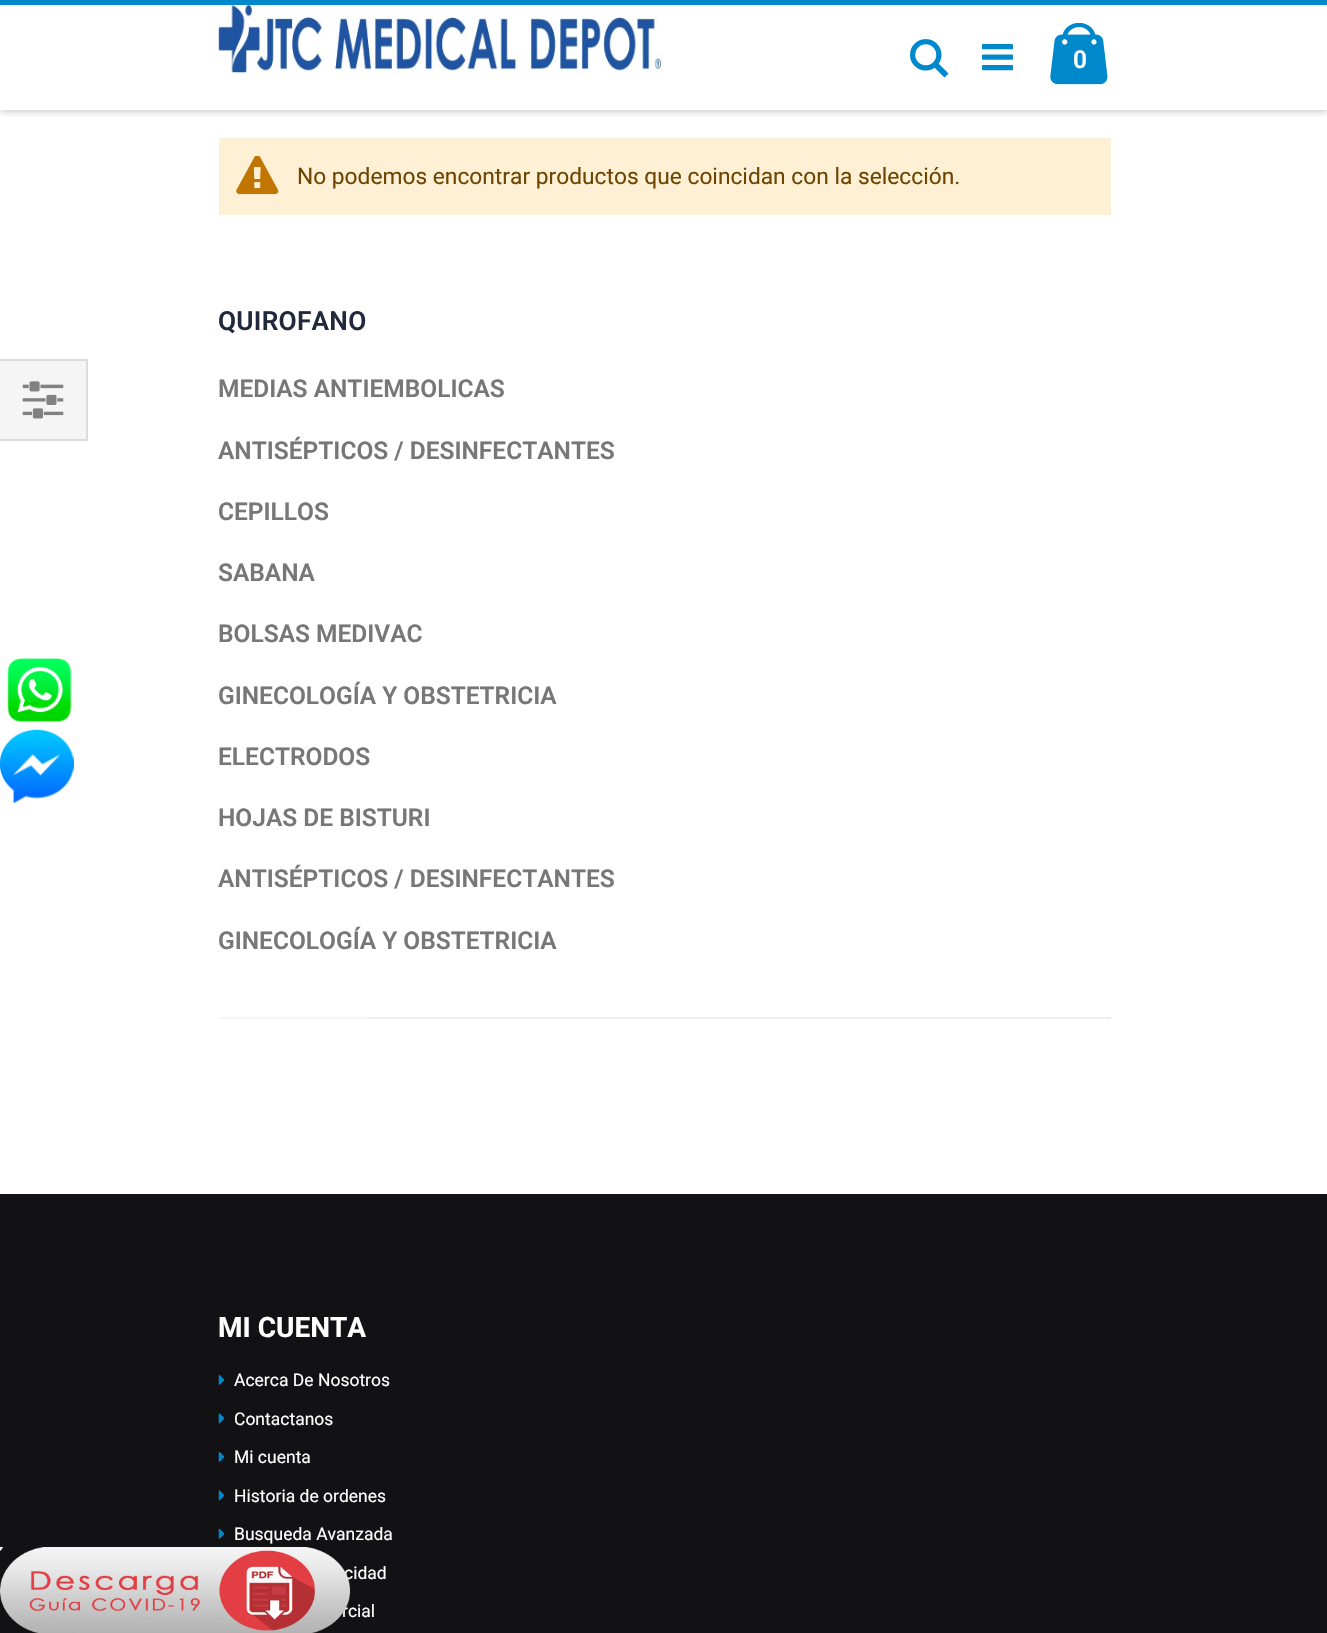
#include "include/core/SkBlurTypes.h"
#include "include/core/SkCanvas.h"
#include "include/core/SkData.h"
#include "include/core/SkFont.h"
#include "include/core/SkFontMgr.h"
#include "include/core/SkImage.h"
#include "include/core/SkMaskFilter.h"
#include "include/core/SkPaint.h"
#include "include/core/SkPathBuilder.h"
#include "include/core/SkTextBlob.h"
#include "include/effects/SkDashPathEffect.h"
#include "include/effects/SkGradientShader.h"
#include "include/utils/SkParsePath.h"

extern sk_sp<SkFontMgr> fontMgr;

void draw(SkCanvas* canvas) {
    SkPaint p;
    p.setAntiAlias(true);
    auto font = [&](const char* family, int weight, float size, bool italic = false) {
        SkFontStyle style(weight, SkFontStyle::kNormal_Width,
            italic ? SkFontStyle::kItalic_Slant : SkFontStyle::kUpright_Slant);
        SkFont result(fontMgr->matchFamilyStyle(family, style), size);
        result.setSubpixel(true);
        return result;
    };
    auto drawTracked = [&](const char* s, float x, float y, const SkFont& font, const SkPaint& ink, float letter, float word) {
        std::vector<SkGlyphID> glyphs(font.countText(s, strlen(s), SkTextEncoding::kUTF8));
        std::vector<float> xs(glyphs.size());
        font.textToGlyphs(s, strlen(s), SkTextEncoding::kUTF8, glyphs);
        font.getXPos(glyphs, xs, x);
        float extra = 0;
        for (size_t i = 0; i < glyphs.size(); i++) {
            xs[i] += extra;
            extra += letter + word * (glyphs[i] == font.unicharToGlyph(' '));
        }
        canvas->drawTextBlob(SkTextBlob::MakeFromPosHGlyphs(glyphs, xs, y, font), 0, 0, ink);
    };
    auto drawPhoto = [&](const char* path, float l, float t, float r, float b) {
        auto image = SkImages::DeferredFromEncodedData(SkData::MakeFromFileName(path));
        canvas->drawImageRect(image, SkRect::MakeLTRB(l, t, r, b), SkSamplingOptions());
    };
    canvas->clear(0xFFFFFFFF);
    canvas->save();
    canvas->clipRect(SkRect::MakeLTRB(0, 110, 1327, 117));
    p.setColor(0x4D000000);
    p.setMaskFilter(SkMaskFilter::MakeBlur(kNormal_SkBlurStyle, 4.5f));
    canvas->drawRect(SkRect::MakeLTRB(0, 0, 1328, 110), p);
    p.setMaskFilter(nullptr);
    canvas->restore();
    p.setColor(0xFF0088CC);
    canvas->drawRect(SkRect::MakeLTRB(0, 0, 1327, 5), p);
    drawPhoto("media/1.png", 218, 5, 665, 75);
    drawPhoto("media/2.png", 910, 39, 949, 78);
    drawPhoto("media/3.png", 982, 44, 1013, 71);
    drawPhoto("media/4.png", 1050, 23, 1108, 85);
    auto font1 = font("Roboto", 600, 24.5f);
    p.setColor(0xFFFFFFFF);
    canvas->drawString("0", 1073, 68, font1, p);
    p.setColor(0xFFFDF0D5);
    canvas->drawRect(SkRect::MakeLTRB(219, 138, 1111, 215), p);
    drawPhoto("media/5.png", 236, 156, 279, 195);
    auto font2 = font("Roboto", 400, 22.75f);
    p.setColor(0xFF6F4400);
    canvas->drawString("No podemos encontrar productos que coincidan con la selección.", 297, 184, font2, p);
    p.setColor(0xFFF5F5F5);
    canvas->drawRect(SkRect::MakeLTRB(-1, 360, 87, 440), p);
    p.setStyle(SkPaint::kStroke_Style);
    p.setStrokeWidth(2);
    p.setColor(0xFFDCDCDA);
    canvas->drawRect(SkRect::MakeLTRB(-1, 360, 87, 440), p);
    drawPhoto("media/6.png", 22, 381, 64, 419);
    auto font3 = font("Roboto", 600, 26.25f);
    p.setStyle(SkPaint::kFill_Style);
    p.setColor(0xFF21293C);
    drawTracked("QUIROFANO", 218, 330, font3, p, 0.25f, 0);
    p.setColor(0xFFEFEFEF);
    canvas->drawRect(SkRect::MakeLTRB(368, 1017, 1111, 1019), p);
    p.setColor(0xFFF7F7F7);
    canvas->drawRect(SkRect::MakeLTRB(219, 1017, 368, 1019), p);
    p.setColor(0xFF777777);
    {
        const struct { const char* s; float x, y; } items[] = {
            {"MEDIAS ANTIEMBOLICAS", 218, 397},
            {"ANTISÉPTICOS / DESINFECTANTES", 218, 459},
            {"CEPILLOS", 218, 520},
            {"SABANA", 218, 581},
            {"BOLSAS MEDIVAC", 218, 642},
            {"GINECOLOGÍA Y OBSTETRICIA", 218, 704},
            {"ELECTRODOS", 218, 765},
            {"HOJAS DE BISTURI", 218, 826},
            {"ANTISÉPTICOS / DESINFECTANTES", 218, 887},
            {"GINECOLOGÍA Y OBSTETRICIA", 218, 949},
        };
        for (auto [s, x, y] : items) {
            canvas->drawString(s, x, y, font1, p);
        }
    }
    drawPhoto("media/7.png", 7, 658, 72, 723);
    drawPhoto("media/8.png", 0, 729, 74, 803);
    p.setColor(0xFF121214);
    canvas->drawRect(SkRect::MakeLTRB(0, 1194, 1327, 1633), p);
    auto font4 = font("Roboto", 400, 17.5f);
    p.setColor(0xFFFFFFFF);
    canvas->drawString("cidad", 344, 1579, font4, p);
    canvas->drawString("rcial", 342, 1617, font4, p);
    drawPhoto("media/9.png", 0, 1547, 350, 1633);
    auto font5 = font("Roboto", 700, 28);
    canvas->drawString("MI CUENTA", 218, 1337, font5, p);
    drawPhoto("media/10.png", 218, 1374, 225, 1385);
    canvas->drawString("Acerca De Nosotros", 234, 1386, font4, p);
    drawPhoto("media/11.png", 218, 1413, 225, 1424);
    canvas->drawString("Contactanos", 234, 1425, font4, p);
    drawPhoto("media/10.png", 218, 1451, 225, 1462);
    canvas->drawString("Mi cuenta", 234, 1463, font4, p);
    drawPhoto("media/11.png", 218, 1490, 225, 1501);
    canvas->drawString("Historia de ordenes", 234, 1502, font4, p);
    drawPhoto("media/10.png", 218, 1528, 225, 1539);
    canvas->drawString("Busqueda Avanzada", 234, 1540, font4, p);
}
